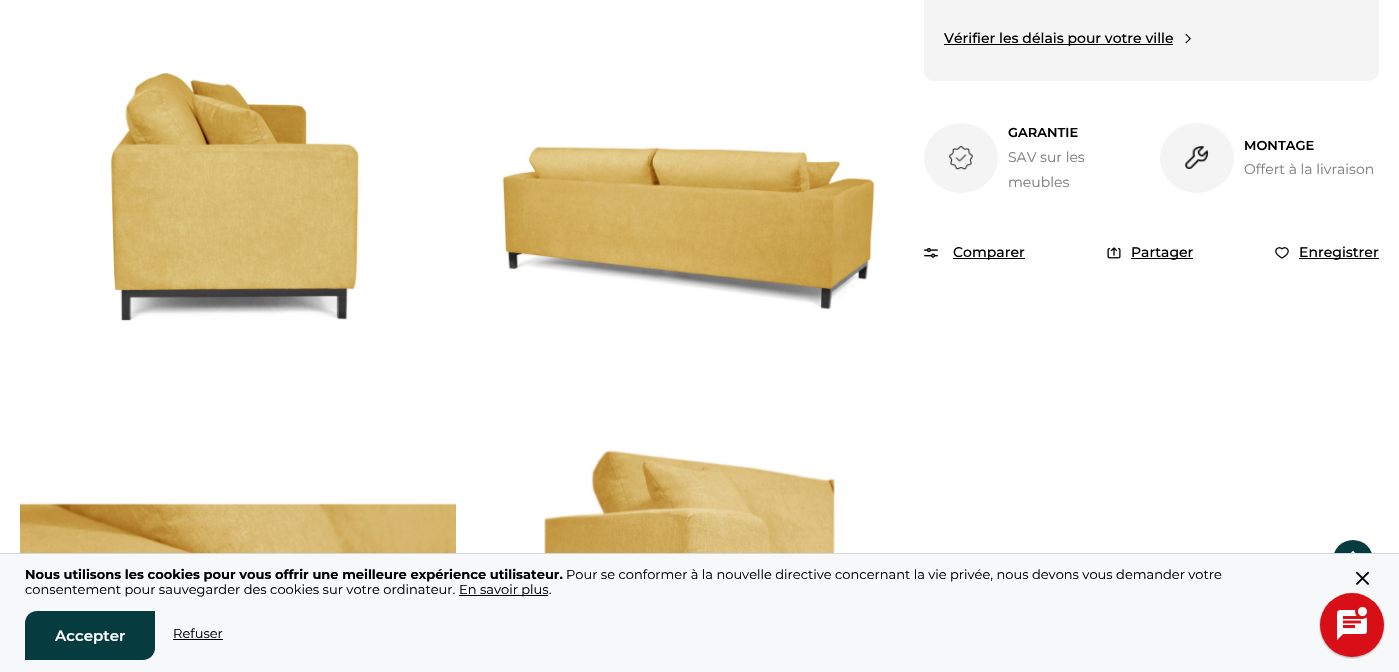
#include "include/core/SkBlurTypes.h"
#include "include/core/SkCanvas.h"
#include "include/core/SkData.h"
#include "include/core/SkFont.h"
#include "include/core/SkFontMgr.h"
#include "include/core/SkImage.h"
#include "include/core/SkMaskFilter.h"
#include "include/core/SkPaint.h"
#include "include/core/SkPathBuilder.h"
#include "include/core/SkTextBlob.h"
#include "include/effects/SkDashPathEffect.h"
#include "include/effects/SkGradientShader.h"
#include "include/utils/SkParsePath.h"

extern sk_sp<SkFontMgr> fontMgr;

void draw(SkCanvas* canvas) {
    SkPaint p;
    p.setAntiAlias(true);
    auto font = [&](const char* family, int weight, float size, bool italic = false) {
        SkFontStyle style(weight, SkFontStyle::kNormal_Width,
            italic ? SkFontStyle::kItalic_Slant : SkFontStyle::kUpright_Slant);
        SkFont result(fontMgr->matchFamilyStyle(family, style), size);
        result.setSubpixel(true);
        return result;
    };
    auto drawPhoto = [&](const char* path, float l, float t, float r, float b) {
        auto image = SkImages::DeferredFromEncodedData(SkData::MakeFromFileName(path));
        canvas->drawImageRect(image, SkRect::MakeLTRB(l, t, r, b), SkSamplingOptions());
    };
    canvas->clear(0xFFFFFFFF);
    drawPhoto("media/1.png", 110, 72, 360, 321);
    drawPhoto("media/2.png", 503, 146, 875, 310);
    drawPhoto("media/3.png", 20, 503, 456, 553);
    drawPhoto("media/4.png", 544, 450, 835, 553);
    p.setColor(0xFFF5F4F4);
    canvas->drawRoundRect(SkRect::MakeLTRB(924, -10, 1379, 81), 10, 10, p);
    p.setColor(0xFF000000);
    canvas->drawRect(SkRect::MakeLTRB(944, 44, 1173, 45), p);
    auto font1 = font("Montserrat", 500, 14);
    canvas->drawString("Vérifier les délais pour votre ville", 944, 43, font1, p);
    drawPhoto("media/5.png", 1185, 33, 1191, 44);
    p.setColor(0xFFF5F4F4);
    canvas->drawOval(SkRect::MakeLTRB(924, 123, 998, 193), p);
    drawPhoto("media/6.png", 949, 146, 973, 170);
    auto font2 = font("Montserrat", 600, 13);
    p.setColor(0xFF000000);
    canvas->drawString("GARANTIE", 1008, 137, font2, p);
    auto font3 = font("Montserrat", 400, 14);
    p.setColor(0xFF7D7D7D);
    canvas->drawString("SAV sur les", 1008, 162, font3, p);
    canvas->drawString("meubles", 1008, 187, font3, p);
    p.setColor(0xFFF5F4F4);
    canvas->drawOval(SkRect::MakeLTRB(1160, 123, 1234, 193), p);
    drawPhoto("media/7.png", 1185, 146, 1209, 170);
    p.setColor(0xFF000000);
    canvas->drawString("MONTAGE", 1244, 150, font2, p);
    p.setColor(0xFF7D7D7D);
    canvas->drawString("Offert à la livraison", 1244, 174, font3, p);
    drawPhoto("media/8.png", 924, 248, 938, 258);
    p.setColor(0xFF000000);
    canvas->drawRect(SkRect::MakeLTRB(953, 258, 1025, 259), p);
    canvas->drawString("Comparer", 953, 257, font1, p);
    drawPhoto("media/9.png", 1107, 247, 1121, 259);
    canvas->drawRect(SkRect::MakeLTRB(1131, 258, 1193, 259), p);
    canvas->drawString("Partager", 1131, 257, font1, p);
    drawPhoto("media/10.png", 1275, 247, 1289, 259);
    canvas->drawRect(SkRect::MakeLTRB(1299, 258, 1379, 259), p);
    canvas->drawString("Enregistrer", 1299, 257, font1, p);
    p.setColor(0xFF063B3F);
    canvas->drawCircle(1353, 560, 20, p);
    drawPhoto("media/11.png", 1350, 551, 1356, 553);
    p.setColor(0xFFF6F8FA);
    canvas->drawRect(SkRect::MakeLTRB(0, 554, 1399, 672), p);
    p.setColor(0xFFD0D7DE);
    canvas->drawRect(SkRect::MakeLTRB(0, 553, 1399, 554), p);
    auto font4 = font("Montserrat", 700, 13);
    p.setColor(0xFF000000);
    canvas->drawString("Nous utilisons les cookies pour vous offrir une meilleure expérience utilisateur.", 25, 579, font4, p);
    auto font5 = font("Montserrat", 400, 13);
    canvas->drawString("Pour se conformer à la nouvelle directive concernant la vie privée, nous devons vous demander votre", 566, 579, font5, p);
    canvas->drawString("consentement pour sauvegarder des cookies sur votre ordinateur.", 25, 594, font5, p);
    canvas->drawRect(SkRect::MakeLTRB(459, 595, 548, 596), p);
    canvas->drawString("En savoir plus.", 459, 594, font5, p);
    drawPhoto("media/12.png", 1356, 571, 1369, 585);
    p.setColor(0xFF063B3F);
    canvas->drawPath(SkPathBuilder().moveTo(37, 611).lineTo(155, 611).lineTo(155, 648).cubicTo(155, 654.5f, 149.5f, 660, 143, 660).lineTo(25, 660).lineTo(25, 623).cubicTo(25, 616.5f, 30.5f, 611, 37, 611).close().detach(), p);
    auto font6 = font("Montserrat", 600, 15);
    p.setColor(0xFFFFFFFF);
    canvas->drawString("Accepter", 55, 641, font6, p);
    p.setColor(0xFF000000);
    canvas->drawString("Refuser", 173, 638, font5, p);
    canvas->drawRect(SkRect::MakeLTRB(173, 639, 223, 640), p);
    drawPhoto("media/13.png", 1319, 592, 1385, 659);
}
